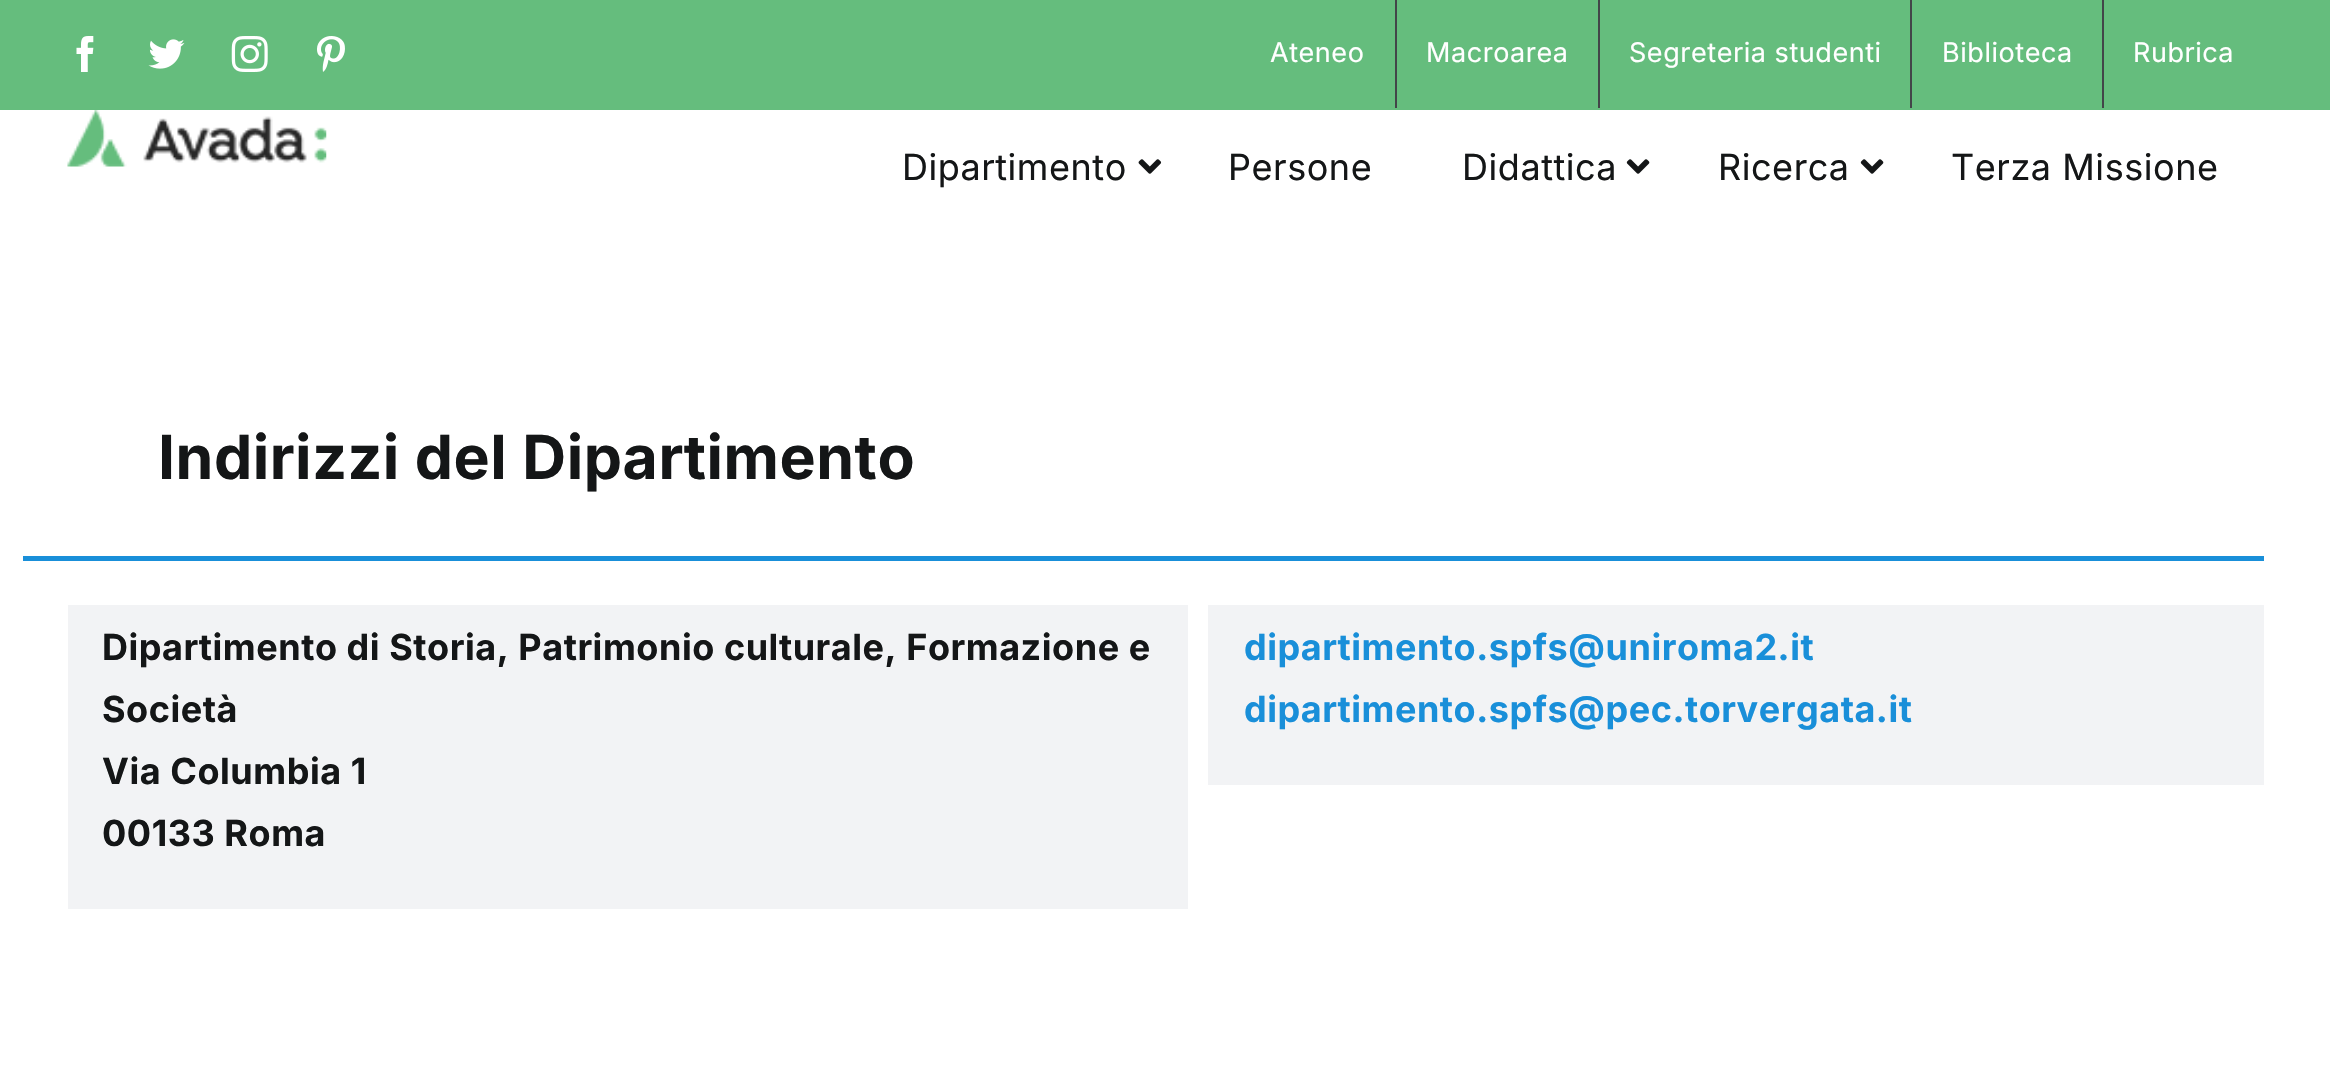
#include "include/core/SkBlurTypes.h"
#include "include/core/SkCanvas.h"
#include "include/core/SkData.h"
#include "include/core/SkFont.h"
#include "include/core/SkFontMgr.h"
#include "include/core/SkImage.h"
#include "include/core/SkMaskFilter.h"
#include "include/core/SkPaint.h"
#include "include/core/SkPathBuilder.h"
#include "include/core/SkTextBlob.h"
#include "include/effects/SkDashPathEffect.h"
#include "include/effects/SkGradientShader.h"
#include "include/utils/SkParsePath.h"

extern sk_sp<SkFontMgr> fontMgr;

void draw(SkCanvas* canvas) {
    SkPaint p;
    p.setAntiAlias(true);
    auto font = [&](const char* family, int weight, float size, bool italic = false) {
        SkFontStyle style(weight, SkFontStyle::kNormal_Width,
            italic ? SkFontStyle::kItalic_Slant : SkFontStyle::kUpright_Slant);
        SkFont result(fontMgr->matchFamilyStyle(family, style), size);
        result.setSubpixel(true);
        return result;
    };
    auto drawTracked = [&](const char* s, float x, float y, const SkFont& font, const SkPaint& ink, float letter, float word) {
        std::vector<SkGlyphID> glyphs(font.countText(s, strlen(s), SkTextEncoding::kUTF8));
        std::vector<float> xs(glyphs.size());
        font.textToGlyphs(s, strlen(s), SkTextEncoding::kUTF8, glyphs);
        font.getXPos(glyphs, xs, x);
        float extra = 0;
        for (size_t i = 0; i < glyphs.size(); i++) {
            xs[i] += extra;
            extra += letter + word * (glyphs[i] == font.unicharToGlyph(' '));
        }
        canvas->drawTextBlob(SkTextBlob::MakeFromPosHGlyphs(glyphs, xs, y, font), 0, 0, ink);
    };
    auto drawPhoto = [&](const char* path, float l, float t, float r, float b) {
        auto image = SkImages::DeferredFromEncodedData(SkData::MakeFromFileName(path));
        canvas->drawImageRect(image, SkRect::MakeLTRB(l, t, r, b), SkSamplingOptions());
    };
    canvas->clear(0xFFFFFFFF);
    p.setColor(0xFF65BD7D);
    canvas->drawRect(SkRect::MakeLTRB(0, 0, 2330, 110), p);
    drawPhoto("media/1.png", 76, 36, 94, 72);
    drawPhoto("media/2.png", 148, 39, 185, 69);
    drawPhoto("media/3.png", 231, 36, 268, 72);
    drawPhoto("media/4.png", 317, 36, 345, 72);
    auto font1 = font("Inter", 400, 27);
    p.setColor(0xFFFFFFFF);
    drawTracked("Ateneo", 1270, 62, font1, p, 0.55f, 0);
    p.setColor(0xFF434549);
    canvas->drawRect(SkRect::MakeLTRB(1395, 0, 1397, 108), p);
    p.setColor(0xFFFFFFFF);
    drawTracked("Macroarea", 1426, 62, font1, p, 0.55f, 0);
    p.setColor(0xFF434549);
    canvas->drawRect(SkRect::MakeLTRB(1598, 0, 1600, 108), p);
    p.setColor(0xFFFFFFFF);
    drawTracked("Segreteria studenti", 1629, 62, font1, p, 0.55f, 0);
    p.setColor(0xFF434549);
    canvas->drawRect(SkRect::MakeLTRB(1910, 0, 1912, 108), p);
    p.setColor(0xFFFFFFFF);
    drawTracked("Biblioteca", 1942, 62, font1, p, 0.55f, 0);
    p.setColor(0xFF434549);
    canvas->drawRect(SkRect::MakeLTRB(2102, 0, 2104, 108), p);
    p.setColor(0xFFFFFFFF);
    drawTracked("Rubrica", 2133, 62, font1, p, 0.55f, 0);
    drawPhoto("media/5.png", 67, 110, 327, 167);
    auto font2 = font("Inter", 400, 36);
    p.setColor(0xFF141617);
    drawTracked("Dipartimento", 902, 180, font2, p, 0.55f, 0);
    drawPhoto("media/6.png", 1138, 159, 1162, 174);
    drawTracked("Persone", 1228, 180, font2, p, 0.55f, 0);
    drawTracked("Didattica", 1462, 180, font2, p, 0.55f, 0);
    drawPhoto("media/7.png", 1626, 159, 1650, 174);
    drawTracked("Ricerca", 1718, 180, font2, p, 0.55f, 0);
    drawPhoto("media/7.png", 1860, 159, 1884, 174);
    drawTracked("Terza Missione", 1951, 180, font2, p, 0.55f, 0);
    p.setColor(0xFF198FD9);
    canvas->drawRect(SkRect::MakeLTRB(23, 556, 2264, 561), p);
    auto font3 = font("Inter", 700, 60.75f);
    p.setColor(0xFF141617);
    drawTracked("Indirizzi del Dipartimento", 158, 479, font3, p, 0.55f, 0);
    p.setColor(0xFFF2F3F5);
    canvas->drawRect(SkRect::MakeLTRB(68, 605, 1188, 909), p);
    auto font4 = font("Inter", 700, 36);
    p.setColor(0xFF141617);
    {
        const struct { const char* s; float x, y; } items[] = {
            {"Dipartimento di Storia, Patrimonio culturale, Formazione e", 102, 660},
            {"Società", 102, 722},
            {"Via Columbia 1", 102, 784},
            {"00133 Roma", 102, 846},
        };
        for (auto [s, x, y] : items) {
            drawTracked(s, x, y, font4, p, 0.55f, 0);
        }
    }
    p.setColor(0xFFF2F3F5);
    canvas->drawRect(SkRect::MakeLTRB(1208, 605, 2264, 785), p);
    p.setColor(0xFF198FD9);
    drawTracked("dipartimento.spfs@uniroma2.it", 1244, 660, font4, p, 0.55f, 0);
    drawTracked("dipartimento.spfs@pec.torvergata.it", 1244, 722, font4, p, 0.55f, 0);
}
